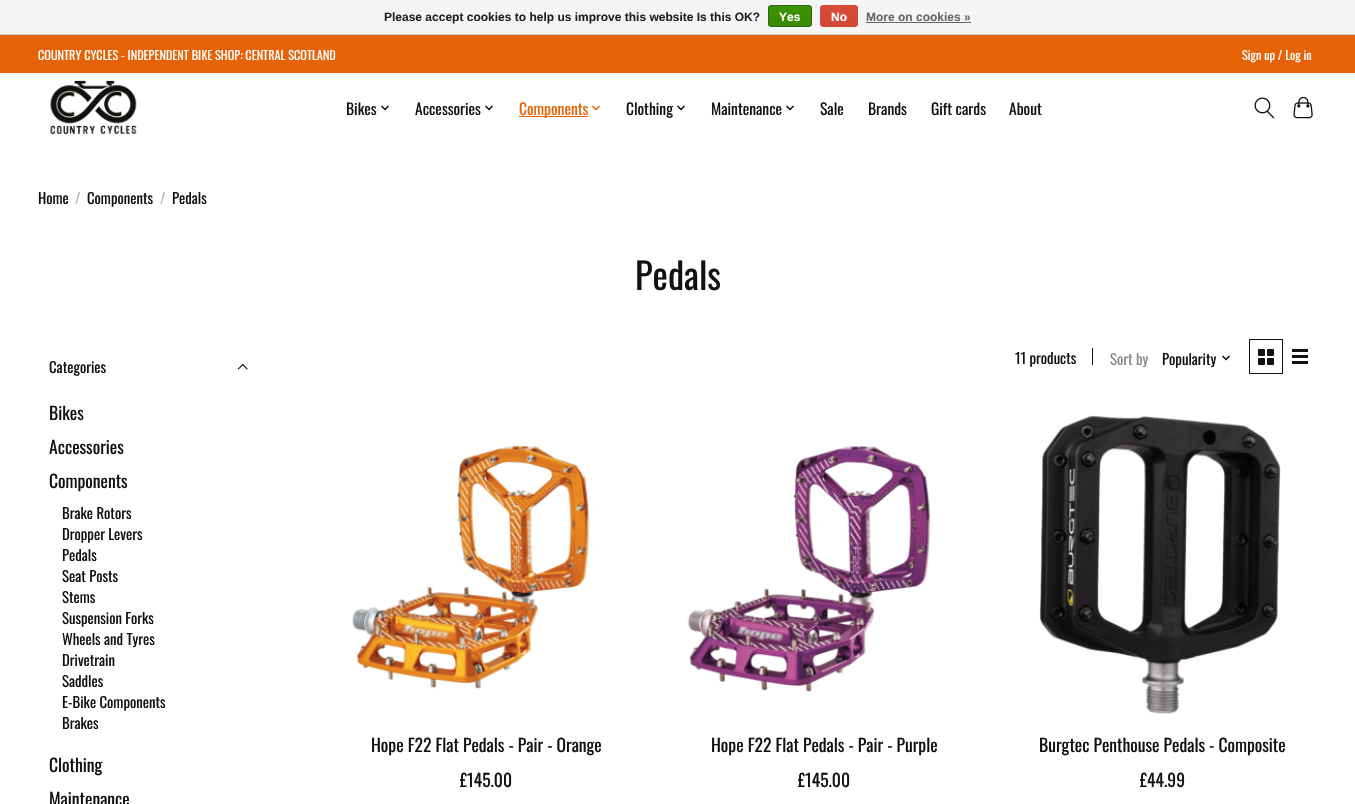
#include "include/core/SkBlurTypes.h"
#include "include/core/SkCanvas.h"
#include "include/core/SkData.h"
#include "include/core/SkFont.h"
#include "include/core/SkFontMgr.h"
#include "include/core/SkImage.h"
#include "include/core/SkMaskFilter.h"
#include "include/core/SkPaint.h"
#include "include/core/SkPathBuilder.h"
#include "include/core/SkTextBlob.h"
#include "include/effects/SkDashPathEffect.h"
#include "include/effects/SkGradientShader.h"
#include "include/utils/SkParsePath.h"

extern sk_sp<SkFontMgr> fontMgr;

void draw(SkCanvas* canvas) {
    SkPaint p;
    p.setAntiAlias(true);
    auto font = [&](const char* family, int weight, float size, bool italic = false) {
        SkFontStyle style(weight, SkFontStyle::kNormal_Width,
            italic ? SkFontStyle::kItalic_Slant : SkFontStyle::kUpright_Slant);
        SkFont result(fontMgr->matchFamilyStyle(family, style), size);
        result.setSubpixel(true);
        return result;
    };
    auto drawPhoto = [&](const char* path, float l, float t, float r, float b) {
        auto image = SkImages::DeferredFromEncodedData(SkData::MakeFromFileName(path));
        canvas->drawImageRect(image, SkRect::MakeLTRB(l, t, r, b), SkSamplingOptions());
    };
    canvas->clear(0xFFFFFFFF);
    p.setColor(0xFFF5F5F5);
    canvas->drawRect(SkRect::MakeLTRB(0, 0, 1355, 34), p);
    p.setColor(0xFFCCCCCC);
    canvas->drawRect(SkRect::MakeLTRB(0, 34, 1355, 35), p);
    auto font1 = font("Liberation Sans", 700, 12);
    p.setColor(0xFF222222);
    canvas->drawString("Please accept cookies to help us improve this website Is this OK?", 384, 21, font1, p);
    canvas->save();
    canvas->clipPath(SkPathBuilder().moveTo(771, 5).lineTo(809, 5).cubicTo(810.5f, 5, 812, 6.5f, 812, 8).lineTo(812, 24).cubicTo(812, 25.5f, 810.5f, 27, 809, 27).lineTo(771, 27).cubicTo(769.5f, 27, 768, 25.5f, 768, 24).lineTo(768, 8).cubicTo(768, 6.5f, 769.5f, 5, 771, 5).close().detach(), true);
    {
        const SkColor colors[] = {0xFF3C9300, 0xFF398A00};
        const float stops[] = {0, 1};
        const SkPoint ends[] = {{790, 6}, {790, 26}};
        p.setShader(SkGradientShader::MakeLinear(ends, colors, stops, 2, SkTileMode::kClamp));
        p.setAlpha(255);
    }
    canvas->drawRect(SkRect::MakeLTRB(768, 6, 812, 26), p);
    canvas->restore();
    p.setStyle(SkPaint::kStroke_Style);
    p.setStrokeWidth(1);
    p.setShader(nullptr);
    p.setColor(0xFF29691D);
    canvas->drawRoundRect(SkRect::MakeLTRB(768.5f, 5.5f, 811.5f, 26.5f), 2.5f, 2.5f, p);
    p.setStyle(SkPaint::kFill_Style);
    p.setColor(0xFFFFFFFF);
    canvas->drawString("Yes", 779, 21, font1, p);
    canvas->save();
    canvas->clipPath(SkPathBuilder().moveTo(823, 5).lineTo(855, 5).cubicTo(856.5f, 5, 858, 6.5f, 858, 8).lineTo(858, 24).cubicTo(858, 25.5f, 856.5f, 27, 855, 27).lineTo(823, 27).cubicTo(821.5f, 27, 820, 25.5f, 820, 24).lineTo(820, 8).cubicTo(820, 6.5f, 821.5f, 5, 823, 5).close().detach(), true);
    {
        const SkColor colors[] = {0xFFDC4A38, 0xFFD14836};
        const float stops[] = {0, 1};
        const SkPoint ends[] = {{839, 6}, {839, 26}};
        p.setShader(SkGradientShader::MakeLinear(ends, colors, stops, 2, SkTileMode::kClamp));
        p.setAlpha(255);
    }
    canvas->drawRect(SkRect::MakeLTRB(820, 6, 858, 26), p);
    canvas->restore();
    p.setStyle(SkPaint::kStroke_Style);
    p.setShader(nullptr);
    p.setColor(0xFFD14836);
    canvas->drawRoundRect(SkRect::MakeLTRB(820.5f, 5.5f, 857.5f, 26.5f), 2.5f, 2.5f, p);
    p.setStyle(SkPaint::kFill_Style);
    p.setColor(0xFFFFFFFF);
    canvas->drawString("No", 831, 21, font1, p);
    p.setColor(0xFF666666);
    canvas->drawString("More on cookies »", 866, 21, font1, p);
    canvas->drawRect(SkRect::MakeLTRB(866, 22, 971, 23), p);
    p.setColor(0xFFE56206);
    canvas->drawRect(SkRect::MakeLTRB(0, 35, 1355, 73), p);
    auto font2 = font("Oswald", 400, 12.25f);
    p.setColor(0xFFFFFFFF);
    canvas->drawString("COUNTRY CYCLES - INDEPENDENT BIKE SHOP: CENTRAL SCOTLAND", 38, 60, font2, p);
    canvas->drawString("Sign up / Log in", 1242, 60, font2, p);
    drawPhoto("media/1.png", 50, 80, 137, 135);
    auto font3 = font("Oswald", 400, 15.5f);
    p.setColor(0xFF12110E);
    canvas->drawString("Bikes", 346, 115, font3, p);
    drawPhoto("media/2.png", 381, 105, 389, 111);
    canvas->drawString("Accessories", 415, 115, font3, p);
    drawPhoto("media/2.png", 485, 105, 493, 111);
    p.setColor(0xFFE56206);
    canvas->drawRect(SkRect::MakeLTRB(519, 116, 588, 117), p);
    canvas->drawString("Components", 519, 115, font3, p);
    drawPhoto("media/3.png", 592, 105, 600, 111);
    p.setColor(0xFF12110E);
    canvas->drawString("Clothing", 626, 115, font3, p);
    drawPhoto("media/2.png", 677, 105, 685, 111);
    canvas->drawString("Maintenance", 711, 115, font3, p);
    drawPhoto("media/2.png", 786, 105, 794, 111);
    {
        const struct { const char* s; float x, y; } items[] = {
            {"Sale", 820, 115},
            {"Brands", 868, 115},
            {"Gift cards", 931, 115},
            {"About", 1009, 115},
        };
        for (auto [s, x, y] : items) {
            canvas->drawString(s, x, y, font3, p);
        }
    }
    drawPhoto("media/4.png", 1254, 97, 1275, 119);
    drawPhoto("media/5.png", 1293, 97, 1313, 119);
    auto font4 = font("Oswald", 400, 14.75f);
    canvas->drawString("Home", 38, 204, font4, p);
    p.setColor(0xFFB8B8B7);
    canvas->drawString("/", 75, 204, font4, p);
    p.setColor(0xFF12110E);
    canvas->drawString("Components", 87, 204, font4, p);
    p.setColor(0xFFB8B8B7);
    canvas->drawString("/", 160, 204, font4, p);
    p.setColor(0xFF12110E);
    canvas->drawString("Pedals", 172, 204, font4, p);
    auto font5 = font("Oswald", 400, 36.5f);
    canvas->drawString("Pedals", 635, 290, font5, p);
    canvas->drawString("Categories", 49, 373, font4, p);
    drawPhoto("media/6.png", 237, 363, 248, 370);
    auto font6 = font("Oswald", 400, 17.6f);
    {
        const struct { const char* s; float x, y; } items[] = {
            {"Bikes", 49, 420},
            {"Accessories", 49, 454},
            {"Components", 49, 488},
        };
        for (auto [s, x, y] : items) {
            canvas->drawString(s, x, y, font6, p);
        }
    }
    {
        const struct { const char* s; float x, y; } items[] = {
            {"Brake Rotors", 62, 519},
            {"Dropper Levers", 62, 540},
            {"Pedals", 62, 561},
            {"Seat Posts", 62, 582},
            {"Stems", 62, 603},
            {"Suspension Forks", 62, 624},
            {"Wheels and Tyres", 62, 645},
            {"Drivetrain", 62, 666},
            {"Saddles", 62, 687},
            {"E-Bike Components", 62, 708},
            {"Brakes", 62, 729},
        };
        for (auto [s, x, y] : items) {
            canvas->drawString(s, x, y, font4, p);
        }
    }
    canvas->drawString("Clothing", 49, 772, font6, p);
    canvas->drawString("Maintenance", 49, 806, font6, p);
    canvas->drawString("11 products", 1015, 364, font4, p);
    canvas->drawRect(SkRect::MakeLTRB(1092, 348, 1093, 365), p);
    p.setColor(0xFF898887);
    canvas->drawString("Sort by", 1110, 365, font4, p);
    p.setColor(0xFF12110E);
    canvas->drawString("Popularity", 1162, 365, font4, p);
    drawPhoto("media/2.png", 1222, 355, 1230, 361);
    p.setStyle(SkPaint::kStroke_Style);
    canvas->drawRect(SkRect::MakeLTRB(1249.5f, 339.5f, 1282.5f, 373.5f), p);
    drawPhoto("media/7.png", 1258, 349, 1274, 365);
    p.setStyle(SkPaint::kFill_Style);
    {
        const struct { float l, t, r, b; SkColor color; } items[] = {
            {1292, 349, 1308, 352, 0xFF12110E},
            {1292, 355, 1308, 358, 0xFF12110E},
            {1292, 361, 1308, 364, 0xFF12110E},
        };
        for (auto [l, t, r, b, color] : items) {
            p.setColor(color);
            canvas->drawRect(SkRect::MakeLTRB(l, t, r, b), p);
        }
    }
    drawPhoto("media/8.png", 352, 445, 590, 689);
    canvas->drawString("Hope F22 Flat Pedals - Pair - Orange", 371, 752, font6, p);
    canvas->drawString("£145.00", 460, 787, font6, p);
    drawPhoto("media/9.png", 687, 446, 931, 693);
    canvas->drawString("Hope F22 Flat Pedals - Pair - Purple", 711, 752, font6, p);
    canvas->drawString("£145.00", 798, 787, font6, p);
    drawPhoto("media/10.png", 1039, 415, 1281, 714);
    canvas->drawString("Burgtec Penthouse Pedals - Composite", 1039, 752, font6, p);
    canvas->drawString("£44.99", 1140, 787, font6, p);
}
